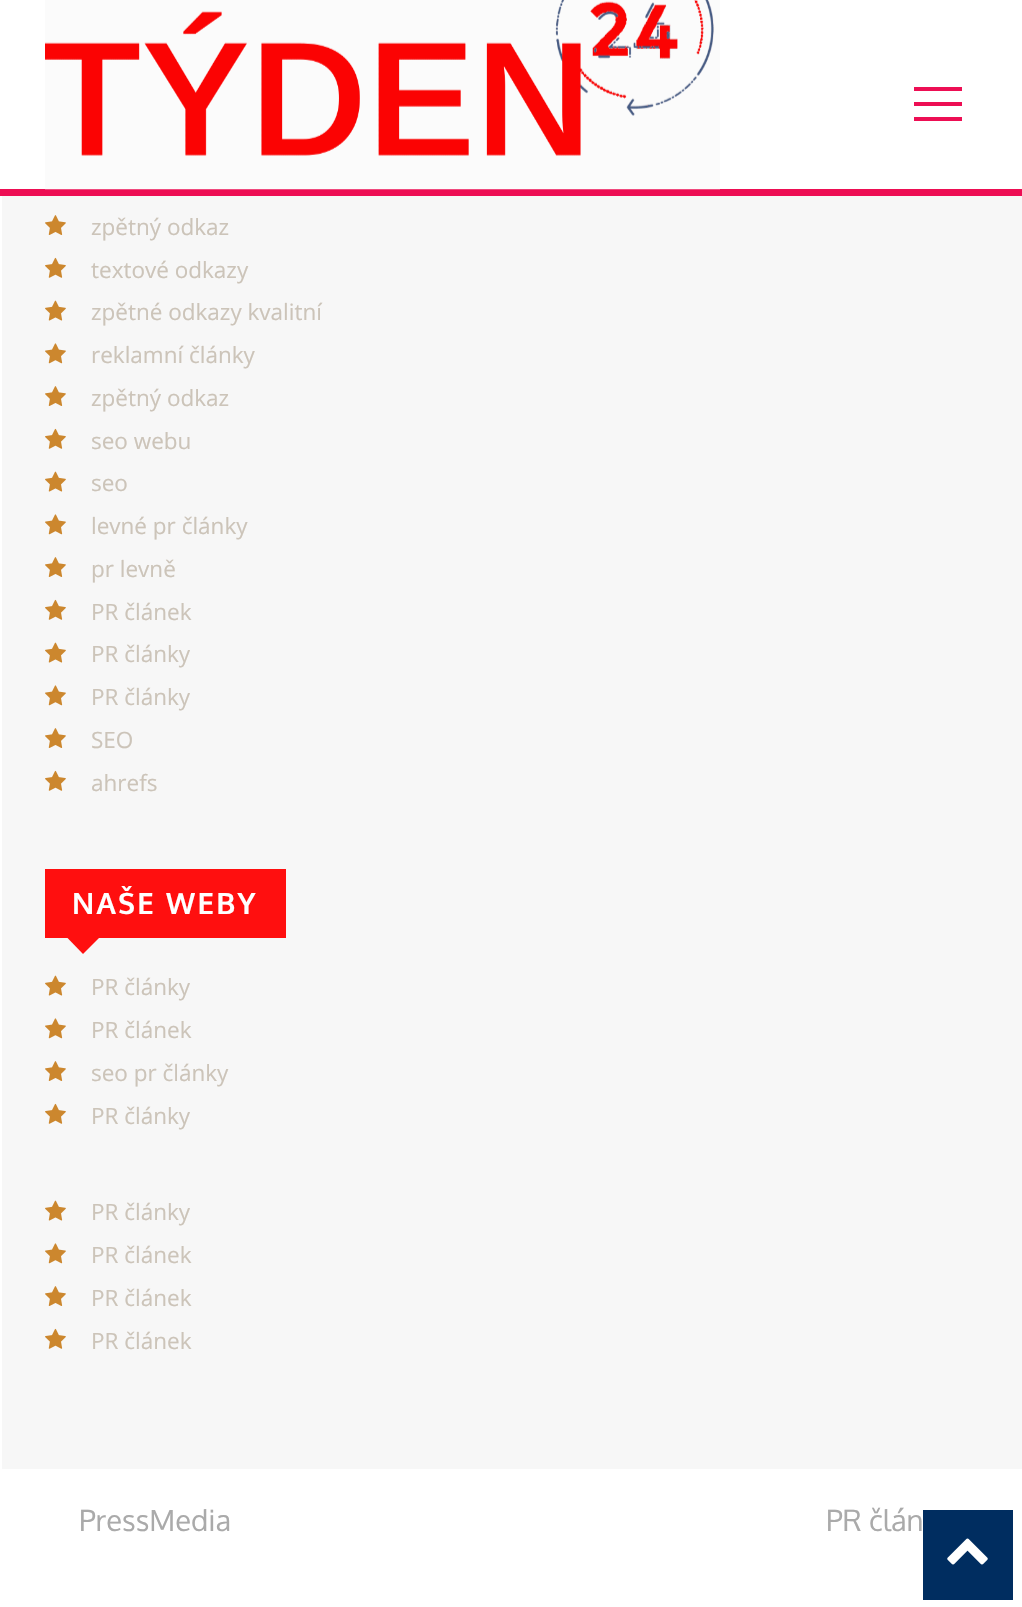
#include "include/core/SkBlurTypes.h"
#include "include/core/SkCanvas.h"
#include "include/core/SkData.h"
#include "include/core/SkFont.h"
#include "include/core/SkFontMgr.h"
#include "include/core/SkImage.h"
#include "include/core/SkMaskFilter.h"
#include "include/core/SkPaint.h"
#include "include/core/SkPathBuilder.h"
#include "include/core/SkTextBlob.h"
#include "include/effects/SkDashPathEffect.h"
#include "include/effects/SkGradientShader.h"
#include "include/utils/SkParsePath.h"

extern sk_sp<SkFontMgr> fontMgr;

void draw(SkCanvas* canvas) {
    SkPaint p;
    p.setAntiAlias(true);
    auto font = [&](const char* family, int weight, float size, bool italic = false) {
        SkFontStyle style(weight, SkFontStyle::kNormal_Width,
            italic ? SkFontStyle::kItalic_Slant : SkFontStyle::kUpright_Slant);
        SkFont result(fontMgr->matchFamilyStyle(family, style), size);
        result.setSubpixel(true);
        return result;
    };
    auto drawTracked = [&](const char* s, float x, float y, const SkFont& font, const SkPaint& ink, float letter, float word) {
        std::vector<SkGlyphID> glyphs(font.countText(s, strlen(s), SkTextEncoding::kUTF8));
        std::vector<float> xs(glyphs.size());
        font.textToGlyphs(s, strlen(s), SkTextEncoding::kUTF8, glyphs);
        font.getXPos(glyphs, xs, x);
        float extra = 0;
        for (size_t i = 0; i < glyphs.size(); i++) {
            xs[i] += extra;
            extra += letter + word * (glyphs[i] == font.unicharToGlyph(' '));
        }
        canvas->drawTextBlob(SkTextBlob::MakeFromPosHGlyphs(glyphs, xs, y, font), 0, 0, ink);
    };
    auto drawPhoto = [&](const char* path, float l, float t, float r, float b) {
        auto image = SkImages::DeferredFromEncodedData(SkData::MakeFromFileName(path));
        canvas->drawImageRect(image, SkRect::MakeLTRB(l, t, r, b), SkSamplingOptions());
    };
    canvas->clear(0xFFFFFFFF);
    p.setColor(0xFFED0E54);
    canvas->drawRect(SkRect::MakeLTRB(0, 189, 1022, 196), p);
    drawPhoto("media/1.png", 45, 0, 720, 190);
    canvas->drawPath(SkPathBuilder().moveTo(914, 102).lineTo(962, 102).lineTo(962, 106).lineTo(914, 106).close().moveTo(914, 87).lineTo(962, 87).lineTo(962, 91).lineTo(914, 91).close().moveTo(914, 117).lineTo(962, 117).lineTo(962, 121).lineTo(914, 121).close().detach(), p);
    p.setColor(0xFFF7F7F7);
    canvas->drawRect(SkRect::MakeLTRB(2, 196, 1022, 1469), p);
    drawPhoto("media/2.png", 45, 215, 66, 235);
    auto font1 = font("Open Sans", 400, 22.5f);
    p.setColor(0xFFCCC4B9);
    canvas->drawString("zpětný odkaz", 91, 235, font1, p);
    drawPhoto("media/3.png", 45, 257, 66, 278);
    canvas->drawString("textové odkazy", 91, 278, font1, p);
    drawPhoto("media/4.png", 45, 300, 66, 321);
    canvas->drawString("zpětné odkazy kvalitní", 91, 320, font1, p);
    drawPhoto("media/5.png", 45, 343, 66, 364);
    canvas->drawString("reklamní články", 91, 363, font1, p);
    drawPhoto("media/2.png", 45, 386, 66, 406);
    canvas->drawString("zpětný odkaz", 91, 406, font1, p);
    drawPhoto("media/3.png", 45, 428, 66, 449);
    canvas->drawString("seo webu", 91, 449, font1, p);
    drawPhoto("media/4.png", 45, 471, 66, 492);
    canvas->drawString("seo", 91, 491, font1, p);
    drawPhoto("media/5.png", 45, 514, 66, 535);
    canvas->drawString("levné pr články", 91, 534, font1, p);
    drawPhoto("media/2.png", 45, 557, 66, 577);
    canvas->drawString("pr levně", 91, 577, font1, p);
    drawPhoto("media/3.png", 45, 599, 66, 620);
    canvas->drawString("PR článek", 91, 620, font1, p);
    drawPhoto("media/4.png", 45, 642, 66, 663);
    canvas->drawString("PR články", 91, 662, font1, p);
    drawPhoto("media/5.png", 45, 685, 66, 706);
    canvas->drawString("PR články", 91, 705, font1, p);
    drawPhoto("media/2.png", 45, 728, 66, 748);
    canvas->drawString("SEO", 91, 748, font1, p);
    drawPhoto("media/3.png", 45, 770, 66, 791);
    canvas->drawString("ahrefs", 91, 791, font1, p);
    p.setColor(0xFFFF0F0F);
    canvas->drawRect(SkRect::MakeLTRB(45, 869, 286, 938), p);
    auto font2 = font("Oxygen", 700, 29.25f);
    p.setColor(0xFFFFFFFF);
    drawTracked("NAŠE WEBY", 72, 914, font2, p, 2.25f, 0);
    p.setColor(0xFFFF0F0F);
    canvas->drawPath(SkPathBuilder().moveTo(67.5f, 938).lineTo(99, 938).lineTo(83, 954).close().detach(), p);
    drawPhoto("media/4.png", 45, 975, 66, 996);
    p.setColor(0xFFCCC4B9);
    canvas->drawString("PR články", 91, 995, font1, p);
    drawPhoto("media/5.png", 45, 1018, 66, 1039);
    canvas->drawString("PR článek", 91, 1038, font1, p);
    drawPhoto("media/2.png", 45, 1061, 66, 1081);
    canvas->drawString("seo pr články", 91, 1081, font1, p);
    drawPhoto("media/3.png", 45, 1103, 66, 1124);
    canvas->drawString("PR články", 91, 1124, font1, p);
    drawPhoto("media/4.png", 45, 1200, 66, 1221);
    canvas->drawString("PR články", 91, 1220, font1, p);
    drawPhoto("media/5.png", 45, 1243, 66, 1264);
    canvas->drawString("PR článek", 91, 1263, font1, p);
    drawPhoto("media/2.png", 45, 1286, 66, 1306);
    canvas->drawString("PR článek", 91, 1306, font1, p);
    drawPhoto("media/3.png", 45, 1328, 66, 1349);
    canvas->drawString("PR článek", 91, 1349, font1, p);
    auto font3 = font("Oxygen", 400, 29.25f);
    p.setColor(0xFFAAAAAA);
    canvas->drawString("PressMedia", 79, 1531, font3, p);
    canvas->drawString("PR člán", 826, 1531, font3, p);
    p.setColor(0xFF002D60);
    canvas->drawRect(SkRect::MakeLTRB(923, 1510, 1013, 1600), p);
    drawPhoto("media/6.png", 947, 1538, 988, 1565);
}
